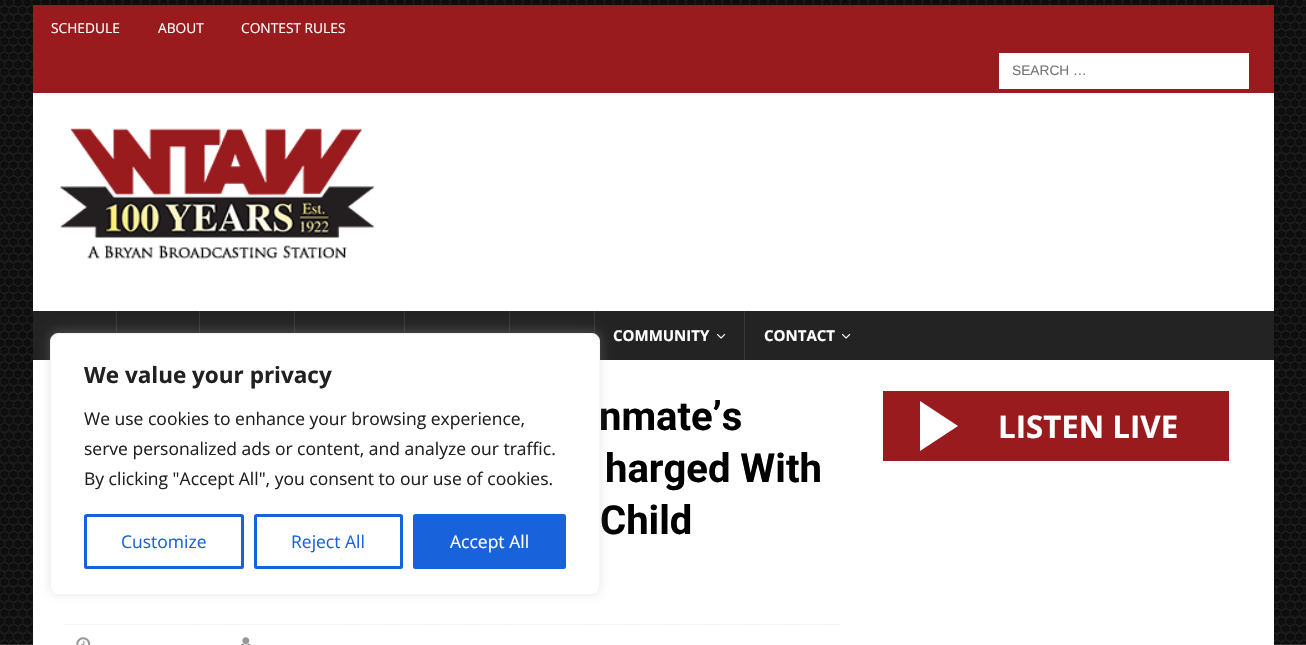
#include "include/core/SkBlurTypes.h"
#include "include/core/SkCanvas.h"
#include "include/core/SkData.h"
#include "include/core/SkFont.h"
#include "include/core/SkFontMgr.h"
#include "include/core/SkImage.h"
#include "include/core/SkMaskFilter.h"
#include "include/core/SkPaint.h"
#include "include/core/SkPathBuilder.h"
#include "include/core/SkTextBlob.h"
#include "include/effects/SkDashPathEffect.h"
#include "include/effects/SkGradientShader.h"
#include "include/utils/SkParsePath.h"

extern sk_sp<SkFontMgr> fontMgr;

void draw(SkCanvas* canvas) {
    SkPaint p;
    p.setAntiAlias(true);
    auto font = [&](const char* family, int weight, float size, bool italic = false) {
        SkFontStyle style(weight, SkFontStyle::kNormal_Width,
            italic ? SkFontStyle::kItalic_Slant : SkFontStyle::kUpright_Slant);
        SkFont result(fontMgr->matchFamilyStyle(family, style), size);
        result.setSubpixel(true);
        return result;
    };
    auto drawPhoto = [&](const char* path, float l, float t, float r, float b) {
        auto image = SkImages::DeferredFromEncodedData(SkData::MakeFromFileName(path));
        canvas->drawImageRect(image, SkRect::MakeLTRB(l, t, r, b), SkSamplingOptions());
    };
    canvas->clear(0xFFFFFFFF);
    drawPhoto("media/1.png", 0, 0, 1306, 645);
    p.setColor(0xFF991B1E);
    canvas->drawRect(SkRect::MakeLTRB(33, 5, 1274, 93), p);
    auto font1 = font("Open Sans", 400, 13.75f);
    p.setColor(0xFFFFFFFF);
    {
        const struct { const char* s; float x, y; } items[] = {
            {"SCHEDULE", 51, 33},
            {"ABOUT", 158, 33},
            {"CONTEST RULES", 241, 33},
        };
        for (auto [s, x, y] : items) {
            canvas->drawString(s, x, y, font1, p);
        }
    }
    canvas->drawRect(SkRect::MakeLTRB(999, 53, 1249, 89), p);
    auto font2 = font("Liberation Sans", 400, 13.75f);
    p.setColor(0xFF757575);
    canvas->drawString("SEARCH …", 1012, 75, font2, p);
    p.setColor(0xFFFFFFFF);
    canvas->drawRect(SkRect::MakeLTRB(33, 93, 1274, 311), p);
    drawPhoto("media/2.png", 60, 128, 374, 259);
    {
        const struct { float l, t, r, b; SkColor color; } items[] = {
            {33, 311, 1274, 360, 0xFF232323},
            {116, 311, 117, 333, 0xFF393939},
            {199, 311, 200, 333, 0xFF393939},
            {294, 311, 295, 333, 0xFF393939},
            {404, 311, 405, 333, 0xFF393939},
            {509, 311, 510, 333, 0xFF393939},
            {594, 311, 595, 334, 0xFF393939},
        };
        for (auto [l, t, r, b, color] : items) {
            p.setColor(color);
            canvas->drawRect(SkRect::MakeLTRB(l, t, r, b), p);
        }
    }
    auto font3 = font("Open Sans", 700, 15);
    p.setColor(0xFFFFFFFF);
    canvas->drawString("COMMUNITY", 613, 341, font3, p);
    drawPhoto("media/3.png", 716, 333, 726, 339);
    p.setColor(0xFF393939);
    canvas->drawRect(SkRect::MakeLTRB(744, 311, 745, 360), p);
    p.setColor(0xFFFFFFFF);
    canvas->drawString("CONTACT", 764, 341, font3, p);
    drawPhoto("media/3.png", 841, 333, 851, 339);
    canvas->drawRect(SkRect::MakeLTRB(33, 360, 1274, 645), p);
    auto font4 = font("Roboto", 700, 40);
    p.setColor(0xFF000000);
    {
        const struct { const char* s; float x, y; } items[] = {
            {"nmate’s", 599, 430},
            {"harged With", 605, 482},
            {"Child", 600, 534},
        };
        for (auto [s, x, y] : items) {
            canvas->drawString(s, x, y, font4, p);
        }
    }
    p.setStyle(SkPaint::kStroke_Style);
    p.setStrokeWidth(1.2f);
    p.setColor(0xFFEBEBEB);
    p.setPathEffect(SkDashPathEffect::Make({{1.25f, 1.25f}}, 0));
    canvas->drawPath(SkPathBuilder().moveTo(64, 624.5f).lineTo(840, 624.5f).detach(), p);
    p.setPathEffect(nullptr);
    drawPhoto("media/4.png", 76, 637, 91, 645);
    drawPhoto("media/5.png", 240, 637, 251, 645);
    p.setStyle(SkPaint::kFill_Style);
    p.setColor(0xFF991B1E);
    canvas->drawRect(SkRect::MakeLTRB(883, 391, 1229, 461), p);
    p.setColor(0xFFFFFFFF);
    canvas->drawPath(SkPathBuilder().moveTo(920, 451).lineTo(920, 401).lineTo(958, 426).close().detach(), p);
    auto font5 = font("Open Sans", 700, 31.25f);
    canvas->drawString("LISTEN LIVE", 998, 438, font5, p);
    p.setColor(0x4DACABAB);
    p.setMaskFilter(SkMaskFilter::MakeBlur(kNormal_SkBlurStyle, 6));
    canvas->drawRoundRect(SkRect::MakeLTRB(50, 331, 600, 594), 8, 8, p);
    p.setMaskFilter(nullptr);
    p.setColor(0xFFFFFFFF);
    canvas->drawRoundRect(SkRect::MakeLTRB(50.5f, 333.5f, 599.5f, 594.5f), 7.5f, 7.5f, p);
    p.setStyle(SkPaint::kStroke_Style);
    p.setStrokeWidth(1);
    p.setColor(0xFFF4F4F4);
    canvas->drawRoundRect(SkRect::MakeLTRB(50.5f, 333.5f, 599.5f, 594.5f), 7.5f, 7.5f, p);
    auto font6 = font("Open Sans", 700, 22.5f);
    p.setStyle(SkPaint::kFill_Style);
    p.setColor(0xFF212121);
    canvas->drawString("We value your privacy", 84, 383, font6, p);
    auto font7 = font("Open Sans", 400, 17.5f);
    {
        const struct { const char* s; float x, y; } items[] = {
            {"We use cookies to enhance your browsing experience,", 84, 425},
            {"serve personalized ads or content, and analyze our traffic.", 84, 455},
            {"By clicking \"Accept All\", you consent to our use of cookies.", 84, 485},
        };
        for (auto [s, x, y] : items) {
            canvas->drawString(s, x, y, font7, p);
        }
    }
    p.setStyle(SkPaint::kStroke_Style);
    p.setStrokeWidth(3);
    p.setColor(0xFF1863DC);
    canvas->drawRoundRect(SkRect::MakeLTRB(85.5f, 515.5f, 242.5f, 567.5f), 1, 1, p);
    p.setStyle(SkPaint::kFill_Style);
    canvas->drawString("Customize", 121, 548, font7, p);
    p.setStyle(SkPaint::kStroke_Style);
    canvas->drawRoundRect(SkRect::MakeLTRB(255.5f, 515.5f, 401.5f, 567.5f), 1, 1, p);
    p.setStyle(SkPaint::kFill_Style);
    canvas->drawString("Reject All", 291, 548, font7, p);
    canvas->drawRoundRect(SkRect::MakeLTRB(414.5f, 515.5f, 564.5f, 567.5f), 1, 1, p);
    p.setStyle(SkPaint::kStroke_Style);
    canvas->drawRoundRect(SkRect::MakeLTRB(414.5f, 515.5f, 564.5f, 567.5f), 1, 1, p);
    p.setStyle(SkPaint::kFill_Style);
    p.setColor(0xFFFFFFFF);
    canvas->drawString("Accept All", 450, 548, font7, p);
}
